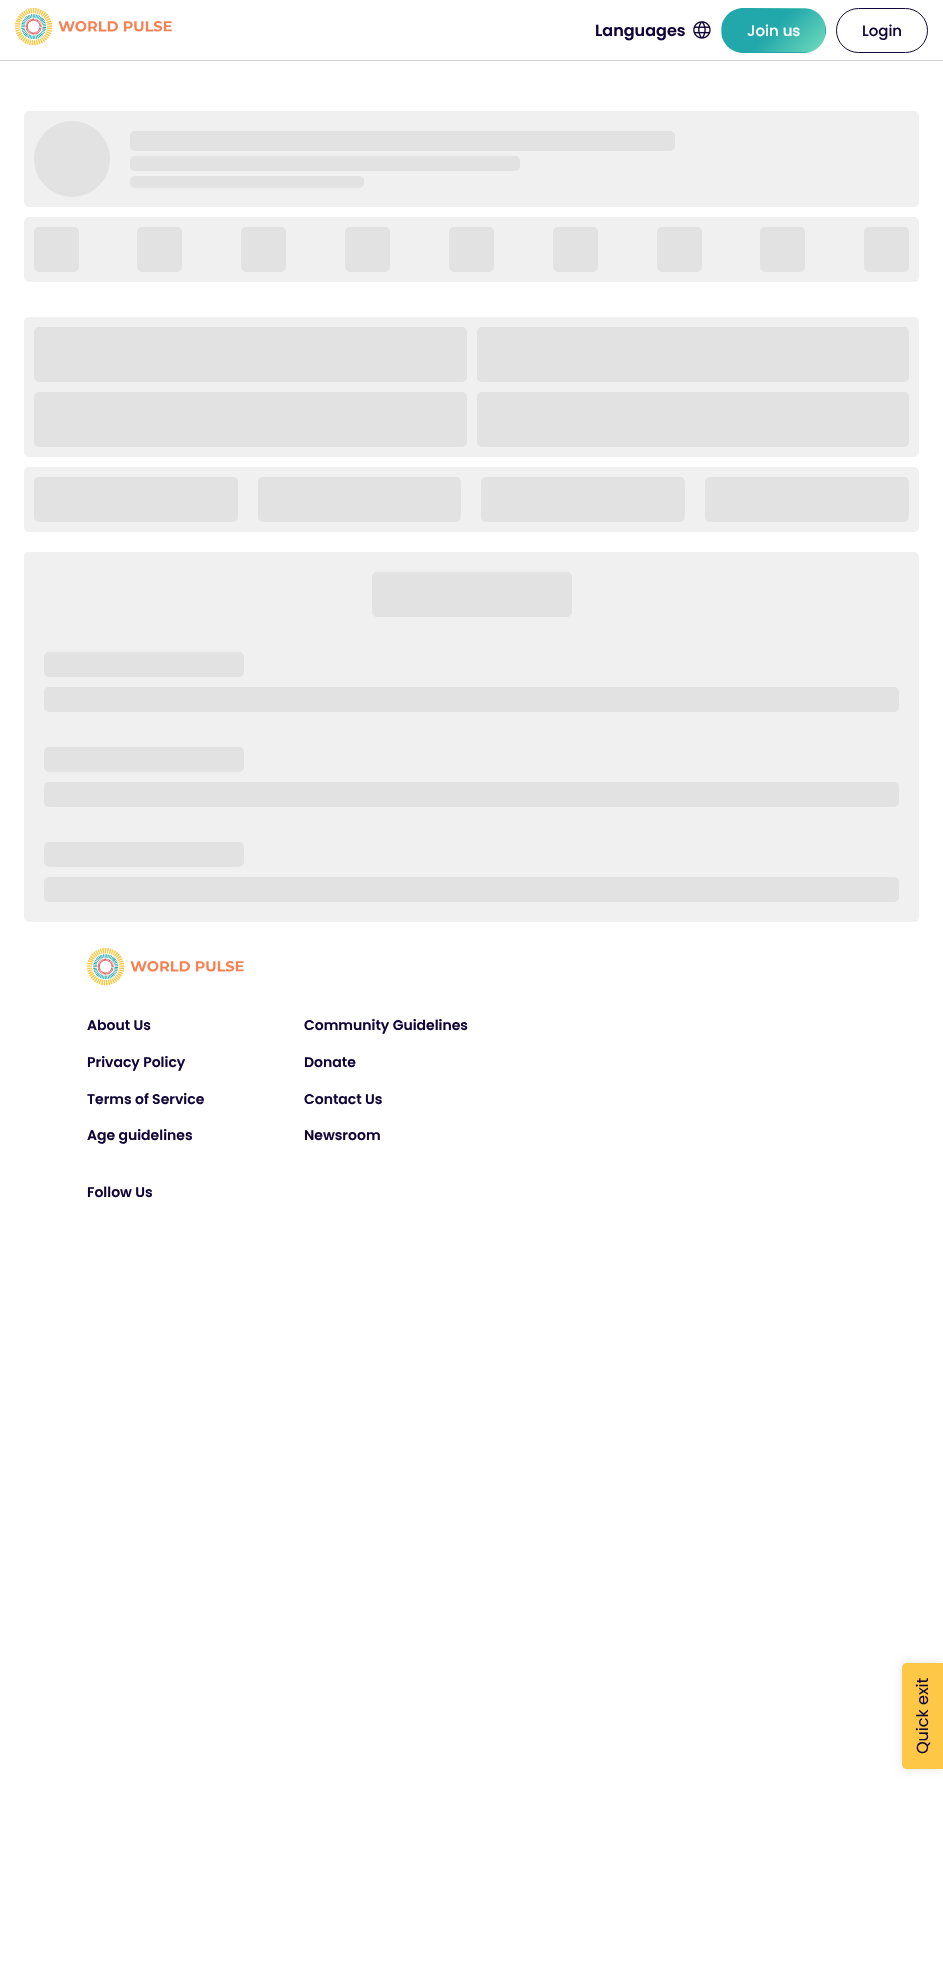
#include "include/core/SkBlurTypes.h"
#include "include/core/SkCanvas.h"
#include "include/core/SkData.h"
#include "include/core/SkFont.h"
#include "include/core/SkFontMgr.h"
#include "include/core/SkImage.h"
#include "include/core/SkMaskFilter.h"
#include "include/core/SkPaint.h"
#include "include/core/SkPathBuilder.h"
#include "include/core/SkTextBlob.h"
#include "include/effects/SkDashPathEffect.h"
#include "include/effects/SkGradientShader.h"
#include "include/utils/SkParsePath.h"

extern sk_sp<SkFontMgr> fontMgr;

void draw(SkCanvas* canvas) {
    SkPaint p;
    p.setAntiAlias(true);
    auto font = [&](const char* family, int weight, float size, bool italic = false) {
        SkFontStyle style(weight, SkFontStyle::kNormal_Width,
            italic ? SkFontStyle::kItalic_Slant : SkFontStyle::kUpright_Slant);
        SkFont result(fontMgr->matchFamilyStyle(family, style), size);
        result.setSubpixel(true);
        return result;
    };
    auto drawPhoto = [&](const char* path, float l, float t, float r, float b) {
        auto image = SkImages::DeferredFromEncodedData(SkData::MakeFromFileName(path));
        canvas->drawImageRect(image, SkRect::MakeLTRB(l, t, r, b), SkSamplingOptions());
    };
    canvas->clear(0xFFFFFFFF);
    p.setColor(0xFFCDCDCD);
    canvas->drawRect(SkRect::MakeLTRB(0, 60, 943, 61), p);
    drawPhoto("media/1.png", 15, 8, 172, 46);
    auto font1 = font("Poppins", 600, 16);
    p.setColor(0xFF120638);
    canvas->drawString("Languages", 595, 36, font1, p);
    drawPhoto("media/2.png", 693, 21, 711, 39);
    canvas->save();
    canvas->clipPath(SkPathBuilder().moveTo(743.5f, 8).lineTo(803.5f, 8).cubicTo(816, 8, 826, 18, 826, 30.5f).cubicTo(826, 43, 816, 53, 803.5f, 53).lineTo(743.5f, 53).cubicTo(731, 53, 721, 43, 721, 30.5f).cubicTo(721, 18, 731, 8, 743.5f, 8).close().detach(), true);
    {
        const SkColor colors[] = {0xFF22A7AB, 0xFF72DDBD};
        const float stops[] = {0.49f, 1};
        const SkPoint ends[] = {{737, -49}, {810, 24}};
        p.setShader(SkGradientShader::MakeLinear(ends, colors, stops, 2, SkTileMode::kClamp));
        p.setAlpha(255);
    }
    canvas->drawRect(SkRect::MakeLTRB(737, 8, 810, 9), p);
    {
        const SkColor colors[] = {0xFF22A7AB, 0xFF72DDBD};
        const float stops[] = {0.49f, 1};
        const SkPoint ends[] = {{634, -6}, {707, 67}};
        p.setShader(SkGradientShader::MakeLinear(ends, colors, stops, 2, SkTileMode::kClamp));
        p.setAlpha(255);
    }
    canvas->drawRect(SkRect::MakeLTRB(721, 24, 722, 37), p);
    {
        const SkColor colors[] = {0xFF22A7AB, 0xFF72DDBD};
        const float stops[] = {0.49f, 1};
        const SkPoint ends[] = {{737, -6}, {810, 67}};
        p.setShader(SkGradientShader::MakeLinear(ends, colors, stops, 2, SkTileMode::kClamp));
        p.setAlpha(255);
    }
    canvas->drawRect(SkRect::MakeLTRB(722, 9, 825, 52), p);
    {
        const SkColor colors[] = {0xFF22A7AB, 0xFF72DDBD};
        const float stops[] = {0.49f, 1};
        const SkPoint ends[] = {{840, -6}, {913, 67}};
        p.setShader(SkGradientShader::MakeLinear(ends, colors, stops, 2, SkTileMode::kClamp));
        p.setAlpha(255);
    }
    canvas->drawRect(SkRect::MakeLTRB(825, 24, 826, 37), p);
    {
        const SkColor colors[] = {0xFF22A7AB, 0xFF72DDBD};
        const float stops[] = {0.49f, 1};
        const SkPoint ends[] = {{737, 37}, {810, 110}};
        p.setShader(SkGradientShader::MakeLinear(ends, colors, stops, 2, SkTileMode::kClamp));
        p.setAlpha(255);
    }
    canvas->drawRect(SkRect::MakeLTRB(737, 52, 810, 53), p);
    canvas->restore();
    auto font2 = font("Poppins", 500, 15);
    p.setShader(nullptr);
    p.setColor(0xFFFFFFFF);
    canvas->drawString("Join us", 747, 36, font2, p);
    p.setStyle(SkPaint::kStroke_Style);
    p.setStrokeWidth(1);
    p.setColor(0xFF120638);
    canvas->drawRoundRect(SkRect::MakeLTRB(836.5f, 8.5f, 927.5f, 52.5f), 22, 22, p);
    p.setStyle(SkPaint::kFill_Style);
    canvas->drawString("Login", 862, 36, font2, p);
    {
        const SkColor colors[] = {0xFFF0F0F0, 0xFFD9D9D9, 0xFFF0F0F0};
        const float stops[] = {0.25f, 0.37f, 0.63f};
        const SkPoint ends[] = {{24, 159}, {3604, 159}};
        p.setShader(SkGradientShader::MakeLinear(ends, colors, stops, 3, SkTileMode::kClamp));
        p.setAlpha(255);
    }
    canvas->drawRoundRect(SkRect::MakeLTRB(24, 111, 919, 207), 5, 5, p);
    {
        const SkColor colors[] = {0xFFE2E2E2, 0xFFCCCCCC, 0xFFE2E2E2};
        const float stops[] = {0.25f, 0.37f, 0.63f};
        const SkPoint ends[] = {{34, 159}, {338, 159}};
        p.setShader(SkGradientShader::MakeLinear(ends, colors, stops, 3, SkTileMode::kClamp));
        p.setAlpha(255);
    }
    canvas->drawCircle(72, 159, 38, p);
    {
        const SkColor colors[] = {0xFFE2E2E2, 0xFFCCCCCC, 0xFFE2E2E2};
        const float stops[] = {0.25f, 0.37f, 0.63f};
        const SkPoint ends[] = {{130, 141}, {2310, 141}};
        p.setShader(SkGradientShader::MakeLinear(ends, colors, stops, 3, SkTileMode::kClamp));
        p.setAlpha(255);
    }
    canvas->drawRoundRect(SkRect::MakeLTRB(130, 131, 675, 151), 5, 5, p);
    {
        const SkColor colors[] = {0xFFE2E2E2, 0xFFCCCCCC, 0xFFE2E2E2};
        const float stops[] = {0.25f, 0.37f, 0.63f};
        const SkPoint ends[] = {{130, 164}, {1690, 163}};
        p.setShader(SkGradientShader::MakeLinear(ends, colors, stops, 3, SkTileMode::kClamp));
        p.setAlpha(255);
    }
    canvas->drawRoundRect(SkRect::MakeLTRB(130, 156, 520, 171), 5, 5, p);
    {
        const SkColor colors[] = {0xFFE2E2E2, 0xFFCCCCCC, 0xFFE2E2E2};
        const float stops[] = {0.25f, 0.37f, 0.63f};
        const SkPoint ends[] = {{130, 182}, {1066, 182}};
        p.setShader(SkGradientShader::MakeLinear(ends, colors, stops, 3, SkTileMode::kClamp));
        p.setAlpha(255);
    }
    canvas->drawRoundRect(SkRect::MakeLTRB(130, 176, 364, 188), 5, 5, p);
    {
        const SkColor colors[] = {0xFFF0F0F0, 0xFFD9D9D9, 0xFFF0F0F0};
        const float stops[] = {0.25f, 0.37f, 0.63f};
        const SkPoint ends[] = {{24, 250}, {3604, 249}};
        p.setShader(SkGradientShader::MakeLinear(ends, colors, stops, 3, SkTileMode::kClamp));
        p.setAlpha(255);
    }
    canvas->drawRoundRect(SkRect::MakeLTRB(24, 217, 919, 282), 5, 5, p);
    {
        const SkColor colors[] = {0xFFE2E2E2, 0xFFCCCCCC, 0xFFE2E2E2};
        const float stops[] = {0.25f, 0.37f, 0.63f};
        const SkPoint ends[] = {{34, 250}, {214, 250}};
        p.setShader(SkGradientShader::MakeLinear(ends, colors, stops, 3, SkTileMode::kClamp));
        p.setAlpha(255);
    }
    canvas->drawRoundRect(SkRect::MakeLTRB(34, 227, 79, 272), 5, 5, p);
    {
        const SkColor colors[] = {0xFFE2E2E2, 0xFFCCCCCC, 0xFFE2E2E2};
        const float stops[] = {0.25f, 0.37f, 0.63f};
        const SkPoint ends[] = {{137, 250}, {317, 250}};
        p.setShader(SkGradientShader::MakeLinear(ends, colors, stops, 3, SkTileMode::kClamp));
        p.setAlpha(255);
    }
    canvas->drawRoundRect(SkRect::MakeLTRB(137, 227, 182, 272), 5, 5, p);
    {
        const SkColor colors[] = {0xFFE2E2E2, 0xFFCCCCCC, 0xFFE2E2E2};
        const float stops[] = {0.25f, 0.37f, 0.63f};
        const SkPoint ends[] = {{241, 250}, {421, 250}};
        p.setShader(SkGradientShader::MakeLinear(ends, colors, stops, 3, SkTileMode::kClamp));
        p.setAlpha(255);
    }
    canvas->drawRoundRect(SkRect::MakeLTRB(241, 227, 286, 272), 5, 5, p);
    {
        const SkColor colors[] = {0xFFE2E2E2, 0xFFCCCCCC, 0xFFE2E2E2};
        const float stops[] = {0.25f, 0.37f, 0.63f};
        const SkPoint ends[] = {{345, 250}, {525, 250}};
        p.setShader(SkGradientShader::MakeLinear(ends, colors, stops, 3, SkTileMode::kClamp));
        p.setAlpha(255);
    }
    canvas->drawRoundRect(SkRect::MakeLTRB(345, 227, 390, 272), 5, 5, p);
    {
        const SkColor colors[] = {0xFFE2E2E2, 0xFFCCCCCC, 0xFFE2E2E2};
        const float stops[] = {0.25f, 0.37f, 0.63f};
        const SkPoint ends[] = {{449, 250}, {629, 250}};
        p.setShader(SkGradientShader::MakeLinear(ends, colors, stops, 3, SkTileMode::kClamp));
        p.setAlpha(255);
    }
    canvas->drawRoundRect(SkRect::MakeLTRB(449, 227, 494, 272), 5, 5, p);
    {
        const SkColor colors[] = {0xFFE2E2E2, 0xFFCCCCCC, 0xFFE2E2E2};
        const float stops[] = {0.25f, 0.37f, 0.63f};
        const SkPoint ends[] = {{553, 250}, {733, 250}};
        p.setShader(SkGradientShader::MakeLinear(ends, colors, stops, 3, SkTileMode::kClamp));
        p.setAlpha(255);
    }
    canvas->drawRoundRect(SkRect::MakeLTRB(553, 227, 598, 272), 5, 5, p);
    {
        const SkColor colors[] = {0xFFE2E2E2, 0xFFCCCCCC, 0xFFE2E2E2};
        const float stops[] = {0.25f, 0.37f, 0.63f};
        const SkPoint ends[] = {{657, 250}, {837, 250}};
        p.setShader(SkGradientShader::MakeLinear(ends, colors, stops, 3, SkTileMode::kClamp));
        p.setAlpha(255);
    }
    canvas->drawRoundRect(SkRect::MakeLTRB(657, 227, 702, 272), 5, 5, p);
    {
        const SkColor colors[] = {0xFFE2E2E2, 0xFFCCCCCC, 0xFFE2E2E2};
        const float stops[] = {0.25f, 0.37f, 0.63f};
        const SkPoint ends[] = {{760, 250}, {940, 250}};
        p.setShader(SkGradientShader::MakeLinear(ends, colors, stops, 3, SkTileMode::kClamp));
        p.setAlpha(255);
    }
    canvas->drawRoundRect(SkRect::MakeLTRB(760, 227, 805, 272), 5, 5, p);
    {
        const SkColor colors[] = {0xFFE2E2E2, 0xFFCCCCCC, 0xFFE2E2E2};
        const float stops[] = {0.25f, 0.37f, 0.63f};
        const SkPoint ends[] = {{864, 250}, {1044, 250}};
        p.setShader(SkGradientShader::MakeLinear(ends, colors, stops, 3, SkTileMode::kClamp));
        p.setAlpha(255);
    }
    canvas->drawRoundRect(SkRect::MakeLTRB(864, 227, 909, 272), 5, 5, p);
    {
        const SkColor colors[] = {0xFFF0F0F0, 0xFFD9D9D9, 0xFFF0F0F0};
        const float stops[] = {0.25f, 0.37f, 0.63f};
        const SkPoint ends[] = {{24, 387}, {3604, 387}};
        p.setShader(SkGradientShader::MakeLinear(ends, colors, stops, 3, SkTileMode::kClamp));
        p.setAlpha(255);
    }
    canvas->drawRoundRect(SkRect::MakeLTRB(24, 317, 919, 457), 5, 5, p);
    {
        const SkColor colors[] = {0xFFE2E2E2, 0xFFCCCCCC, 0xFFE2E2E2};
        const float stops[] = {0.25f, 0.37f, 0.63f};
        const SkPoint ends[] = {{34, 355}, {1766, 354}};
        p.setShader(SkGradientShader::MakeLinear(ends, colors, stops, 3, SkTileMode::kClamp));
        p.setAlpha(255);
    }
    canvas->drawRoundRect(SkRect::MakeLTRB(34, 327, 467, 382), 5, 5, p);
    {
        const SkColor colors[] = {0xFFE2E2E2, 0xFFCCCCCC, 0xFFE2E2E2};
        const float stops[] = {0.25f, 0.37f, 0.63f};
        const SkPoint ends[] = {{477, 355}, {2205, 354}};
        p.setShader(SkGradientShader::MakeLinear(ends, colors, stops, 3, SkTileMode::kClamp));
        p.setAlpha(255);
    }
    canvas->drawRoundRect(SkRect::MakeLTRB(477, 327, 909, 382), 5, 5, p);
    {
        const SkColor colors[] = {0xFFE2E2E2, 0xFFCCCCCC, 0xFFE2E2E2};
        const float stops[] = {0.25f, 0.37f, 0.63f};
        const SkPoint ends[] = {{34, 420}, {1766, 419}};
        p.setShader(SkGradientShader::MakeLinear(ends, colors, stops, 3, SkTileMode::kClamp));
        p.setAlpha(255);
    }
    canvas->drawRoundRect(SkRect::MakeLTRB(34, 392, 467, 447), 5, 5, p);
    {
        const SkColor colors[] = {0xFFE2E2E2, 0xFFCCCCCC, 0xFFE2E2E2};
        const float stops[] = {0.25f, 0.37f, 0.63f};
        const SkPoint ends[] = {{477, 420}, {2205, 419}};
        p.setShader(SkGradientShader::MakeLinear(ends, colors, stops, 3, SkTileMode::kClamp));
        p.setAlpha(255);
    }
    canvas->drawRoundRect(SkRect::MakeLTRB(477, 392, 909, 447), 5, 5, p);
    {
        const SkColor colors[] = {0xFFF0F0F0, 0xFFD9D9D9, 0xFFF0F0F0};
        const float stops[] = {0.25f, 0.37f, 0.63f};
        const SkPoint ends[] = {{24, 500}, {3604, 499}};
        p.setShader(SkGradientShader::MakeLinear(ends, colors, stops, 3, SkTileMode::kClamp));
        p.setAlpha(255);
    }
    canvas->drawRoundRect(SkRect::MakeLTRB(24, 467, 919, 532), 5, 5, p);
    {
        const SkColor colors[] = {0xFFE2E2E2, 0xFFCCCCCC, 0xFFE2E2E2};
        const float stops[] = {0.25f, 0.37f, 0.63f};
        const SkPoint ends[] = {{34, 500}, {850, 500}};
        p.setShader(SkGradientShader::MakeLinear(ends, colors, stops, 3, SkTileMode::kClamp));
        p.setAlpha(255);
    }
    canvas->drawRoundRect(SkRect::MakeLTRB(34, 477, 238, 522), 5, 5, p);
    {
        const SkColor colors[] = {0xFFE2E2E2, 0xFFCCCCCC, 0xFFE2E2E2};
        const float stops[] = {0.25f, 0.37f, 0.63f};
        const SkPoint ends[] = {{258, 500}, {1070, 500}};
        p.setShader(SkGradientShader::MakeLinear(ends, colors, stops, 3, SkTileMode::kClamp));
        p.setAlpha(255);
    }
    canvas->drawRoundRect(SkRect::MakeLTRB(258, 477, 461, 522), 5, 5, p);
    {
        const SkColor colors[] = {0xFFE2E2E2, 0xFFCCCCCC, 0xFFE2E2E2};
        const float stops[] = {0.25f, 0.37f, 0.63f};
        const SkPoint ends[] = {{481, 500}, {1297, 500}};
        p.setShader(SkGradientShader::MakeLinear(ends, colors, stops, 3, SkTileMode::kClamp));
        p.setAlpha(255);
    }
    canvas->drawRoundRect(SkRect::MakeLTRB(481, 477, 685, 522), 5, 5, p);
    {
        const SkColor colors[] = {0xFFE2E2E2, 0xFFCCCCCC, 0xFFE2E2E2};
        const float stops[] = {0.25f, 0.37f, 0.63f};
        const SkPoint ends[] = {{705, 500}, {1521, 500}};
        p.setShader(SkGradientShader::MakeLinear(ends, colors, stops, 3, SkTileMode::kClamp));
        p.setAlpha(255);
    }
    canvas->drawRoundRect(SkRect::MakeLTRB(705, 477, 909, 522), 5, 5, p);
    {
        const SkColor colors[] = {0xFFF0F0F0, 0xFFD9D9D9, 0xFFF0F0F0};
        const float stops[] = {0.25f, 0.37f, 0.63f};
        const SkPoint ends[] = {{24, 737}, {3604, 737}};
        p.setShader(SkGradientShader::MakeLinear(ends, colors, stops, 3, SkTileMode::kClamp));
        p.setAlpha(255);
    }
    canvas->drawRoundRect(SkRect::MakeLTRB(24, 552, 919, 922), 5, 5, p);
    {
        const SkColor colors[] = {0xFFE2E2E2, 0xFFCCCCCC, 0xFFE2E2E2};
        const float stops[] = {0.25f, 0.37f, 0.63f};
        const SkPoint ends[] = {{372, 595}, {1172, 595}};
        p.setShader(SkGradientShader::MakeLinear(ends, colors, stops, 3, SkTileMode::kClamp));
        p.setAlpha(255);
    }
    canvas->drawRoundRect(SkRect::MakeLTRB(372, 572, 572, 617), 5, 5, p);
    {
        const SkColor colors[] = {0xFFE2E2E2, 0xFFCCCCCC, 0xFFE2E2E2};
        const float stops[] = {0.25f, 0.37f, 0.63f};
        const SkPoint ends[] = {{44, 665}, {844, 665}};
        p.setShader(SkGradientShader::MakeLinear(ends, colors, stops, 3, SkTileMode::kClamp));
        p.setAlpha(255);
    }
    canvas->drawRoundRect(SkRect::MakeLTRB(44, 652, 244, 677), 5, 5, p);
    {
        const SkColor colors[] = {0xFFE2E2E2, 0xFFCCCCCC, 0xFFE2E2E2};
        const float stops[] = {0.25f, 0.37f, 0.63f};
        const SkPoint ends[] = {{44, 700}, {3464, 699}};
        p.setShader(SkGradientShader::MakeLinear(ends, colors, stops, 3, SkTileMode::kClamp));
        p.setAlpha(255);
    }
    canvas->drawRoundRect(SkRect::MakeLTRB(44, 687, 899, 712), 5, 5, p);
    {
        const SkColor colors[] = {0xFFE2E2E2, 0xFFCCCCCC, 0xFFE2E2E2};
        const float stops[] = {0.25f, 0.37f, 0.63f};
        const SkPoint ends[] = {{44, 760}, {844, 760}};
        p.setShader(SkGradientShader::MakeLinear(ends, colors, stops, 3, SkTileMode::kClamp));
        p.setAlpha(255);
    }
    canvas->drawRoundRect(SkRect::MakeLTRB(44, 747, 244, 772), 5, 5, p);
    {
        const SkColor colors[] = {0xFFE2E2E2, 0xFFCCCCCC, 0xFFE2E2E2};
        const float stops[] = {0.25f, 0.37f, 0.63f};
        const SkPoint ends[] = {{44, 795}, {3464, 794}};
        p.setShader(SkGradientShader::MakeLinear(ends, colors, stops, 3, SkTileMode::kClamp));
        p.setAlpha(255);
    }
    canvas->drawRoundRect(SkRect::MakeLTRB(44, 782, 899, 807), 5, 5, p);
    {
        const SkColor colors[] = {0xFFE2E2E2, 0xFFCCCCCC, 0xFFE2E2E2};
        const float stops[] = {0.25f, 0.37f, 0.63f};
        const SkPoint ends[] = {{44, 855}, {844, 855}};
        p.setShader(SkGradientShader::MakeLinear(ends, colors, stops, 3, SkTileMode::kClamp));
        p.setAlpha(255);
    }
    canvas->drawRoundRect(SkRect::MakeLTRB(44, 842, 244, 867), 5, 5, p);
    {
        const SkColor colors[] = {0xFFE2E2E2, 0xFFCCCCCC, 0xFFE2E2E2};
        const float stops[] = {0.25f, 0.37f, 0.63f};
        const SkPoint ends[] = {{44, 890}, {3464, 889}};
        p.setShader(SkGradientShader::MakeLinear(ends, colors, stops, 3, SkTileMode::kClamp));
        p.setAlpha(255);
    }
    canvas->drawRoundRect(SkRect::MakeLTRB(44, 877, 899, 902), 5, 5, p);
    drawPhoto("media/1.png", 87, 948, 244, 986);
    auto font3 = font("Poppins", 600, 14);
    p.setShader(nullptr);
    p.setColor(0xFF120638);
    {
        const struct { const char* s; float x, y; } items[] = {
            {"About Us", 87, 1030},
            {"Privacy Policy", 87, 1067},
            {"Terms of Service", 87, 1104},
            {"Age guidelines", 87, 1140},
            {"Community Guidelines", 304, 1030},
            {"Donate", 304, 1067},
            {"Contact Us", 304, 1104},
            {"Newsroom", 304, 1140},
            {"Follow Us", 87, 1197},
        };
        for (auto [s, x, y] : items) {
            canvas->drawString(s, x, y, font3, p);
        }
    }
    p.setColor(0x1A000000);
    p.setMaskFilter(SkMaskFilter::MakeBlur(kNormal_SkBlurStyle, 5));
    canvas->drawRoundRect(SkRect::MakeLTRB(902, 1663, 943, 1769), 5, 5, p);
    p.setMaskFilter(nullptr);
    p.setColor(0xFFFEC745);
    canvas->drawPath(SkPathBuilder().moveTo(943, 1769).lineTo(907, 1769).cubicTo(904, 1769, 902, 1767, 902, 1764).lineTo(902, 1668).cubicTo(902, 1665, 904, 1663, 907, 1663).lineTo(943, 1663).close().detach(), p);
    auto font4 = font("Poppins", 400, 16);
    p.setColor(0xFF120638);
    canvas->save();
    canvas->rotate(-90, 928, 1754);
    canvas->drawString("Quick exit", 928, 1754, font4, p);
    canvas->restore();
}
